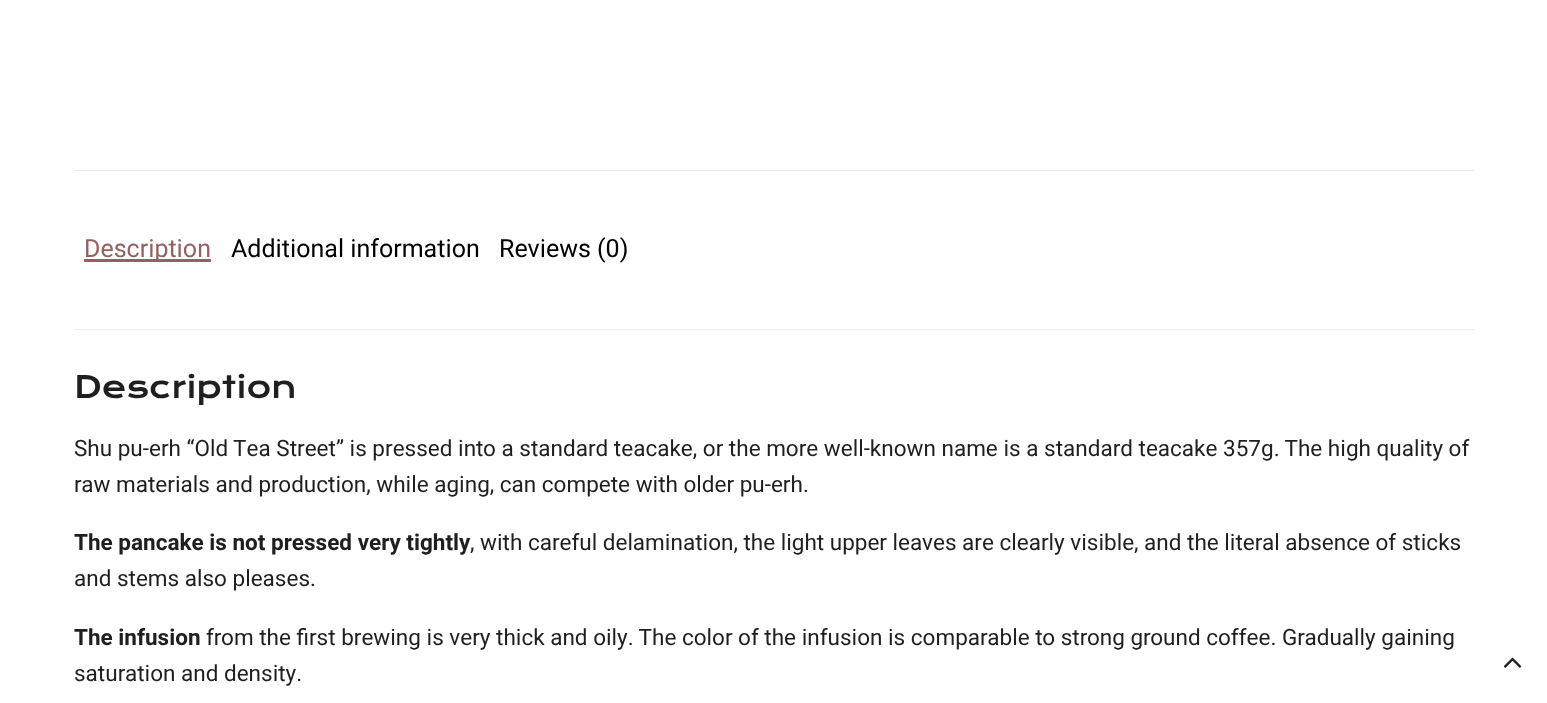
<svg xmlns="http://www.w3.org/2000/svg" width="1547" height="703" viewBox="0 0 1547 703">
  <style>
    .t1 { font: 25px Heebo; fill: #936161; }
    .t2 { font: 25px Heebo; fill: #000; }
    .t3 { font: 30px Krona One; fill: #1f1f1f; }
    .t4 { font: 22.5px Heebo; fill: #1f1f1f; }
    .t5 { font: bold 22.5px Heebo; fill: #1f1f1f; }
  </style>
  <rect width="100%" height="100%" fill="#fff"/>
  <rect x="74" y="170" width="1400" height="1" fill="#ebeced"/>
  <rect x="74" y="329" width="1400" height="1" fill="#ebeced"/>
  <rect x="84" y="259" width="127" height="3" fill="#936161"/>
  <text x="84" y="257" class="t1">Description</text>
  <text x="231" y="257" class="t2">Additional information</text>
  <text x="499" y="257" class="t2">Reviews (0)</text>
  <text x="74" y="398" class="t3">Description</text>
  <text x="74" y="456" class="t4">Shu pu-erh “Old Tea Street” is pressed into a standard teacake, or the more well-known name is a standard teacake 357g. The high quality of</text>
  <text x="74" y="492" class="t4">raw materials and production, while aging, can compete with older pu-erh.</text>
  <text x="74" y="550" class="t5">The pancake is not pressed very tightly</text>
  <text x="470" y="550" class="t4">, with careful delamination, the light upper leaves are clearly visible, and the literal absence of sticks</text>
  <text x="74" y="586" class="t4">and stems also pleases.</text>
  <text x="74" y="645" class="t5">The infusion</text>
  <text x="206" y="645" class="t4">from the first brewing is very thick and oily. The color of the infusion is comparable to strong ground coffee. Gradually gaining</text>
  <text x="74" y="681" class="t4">saturation and density.</text>
  <image x="1503" y="657" width="19" height="11" href="images/1.png"/>
</svg>
